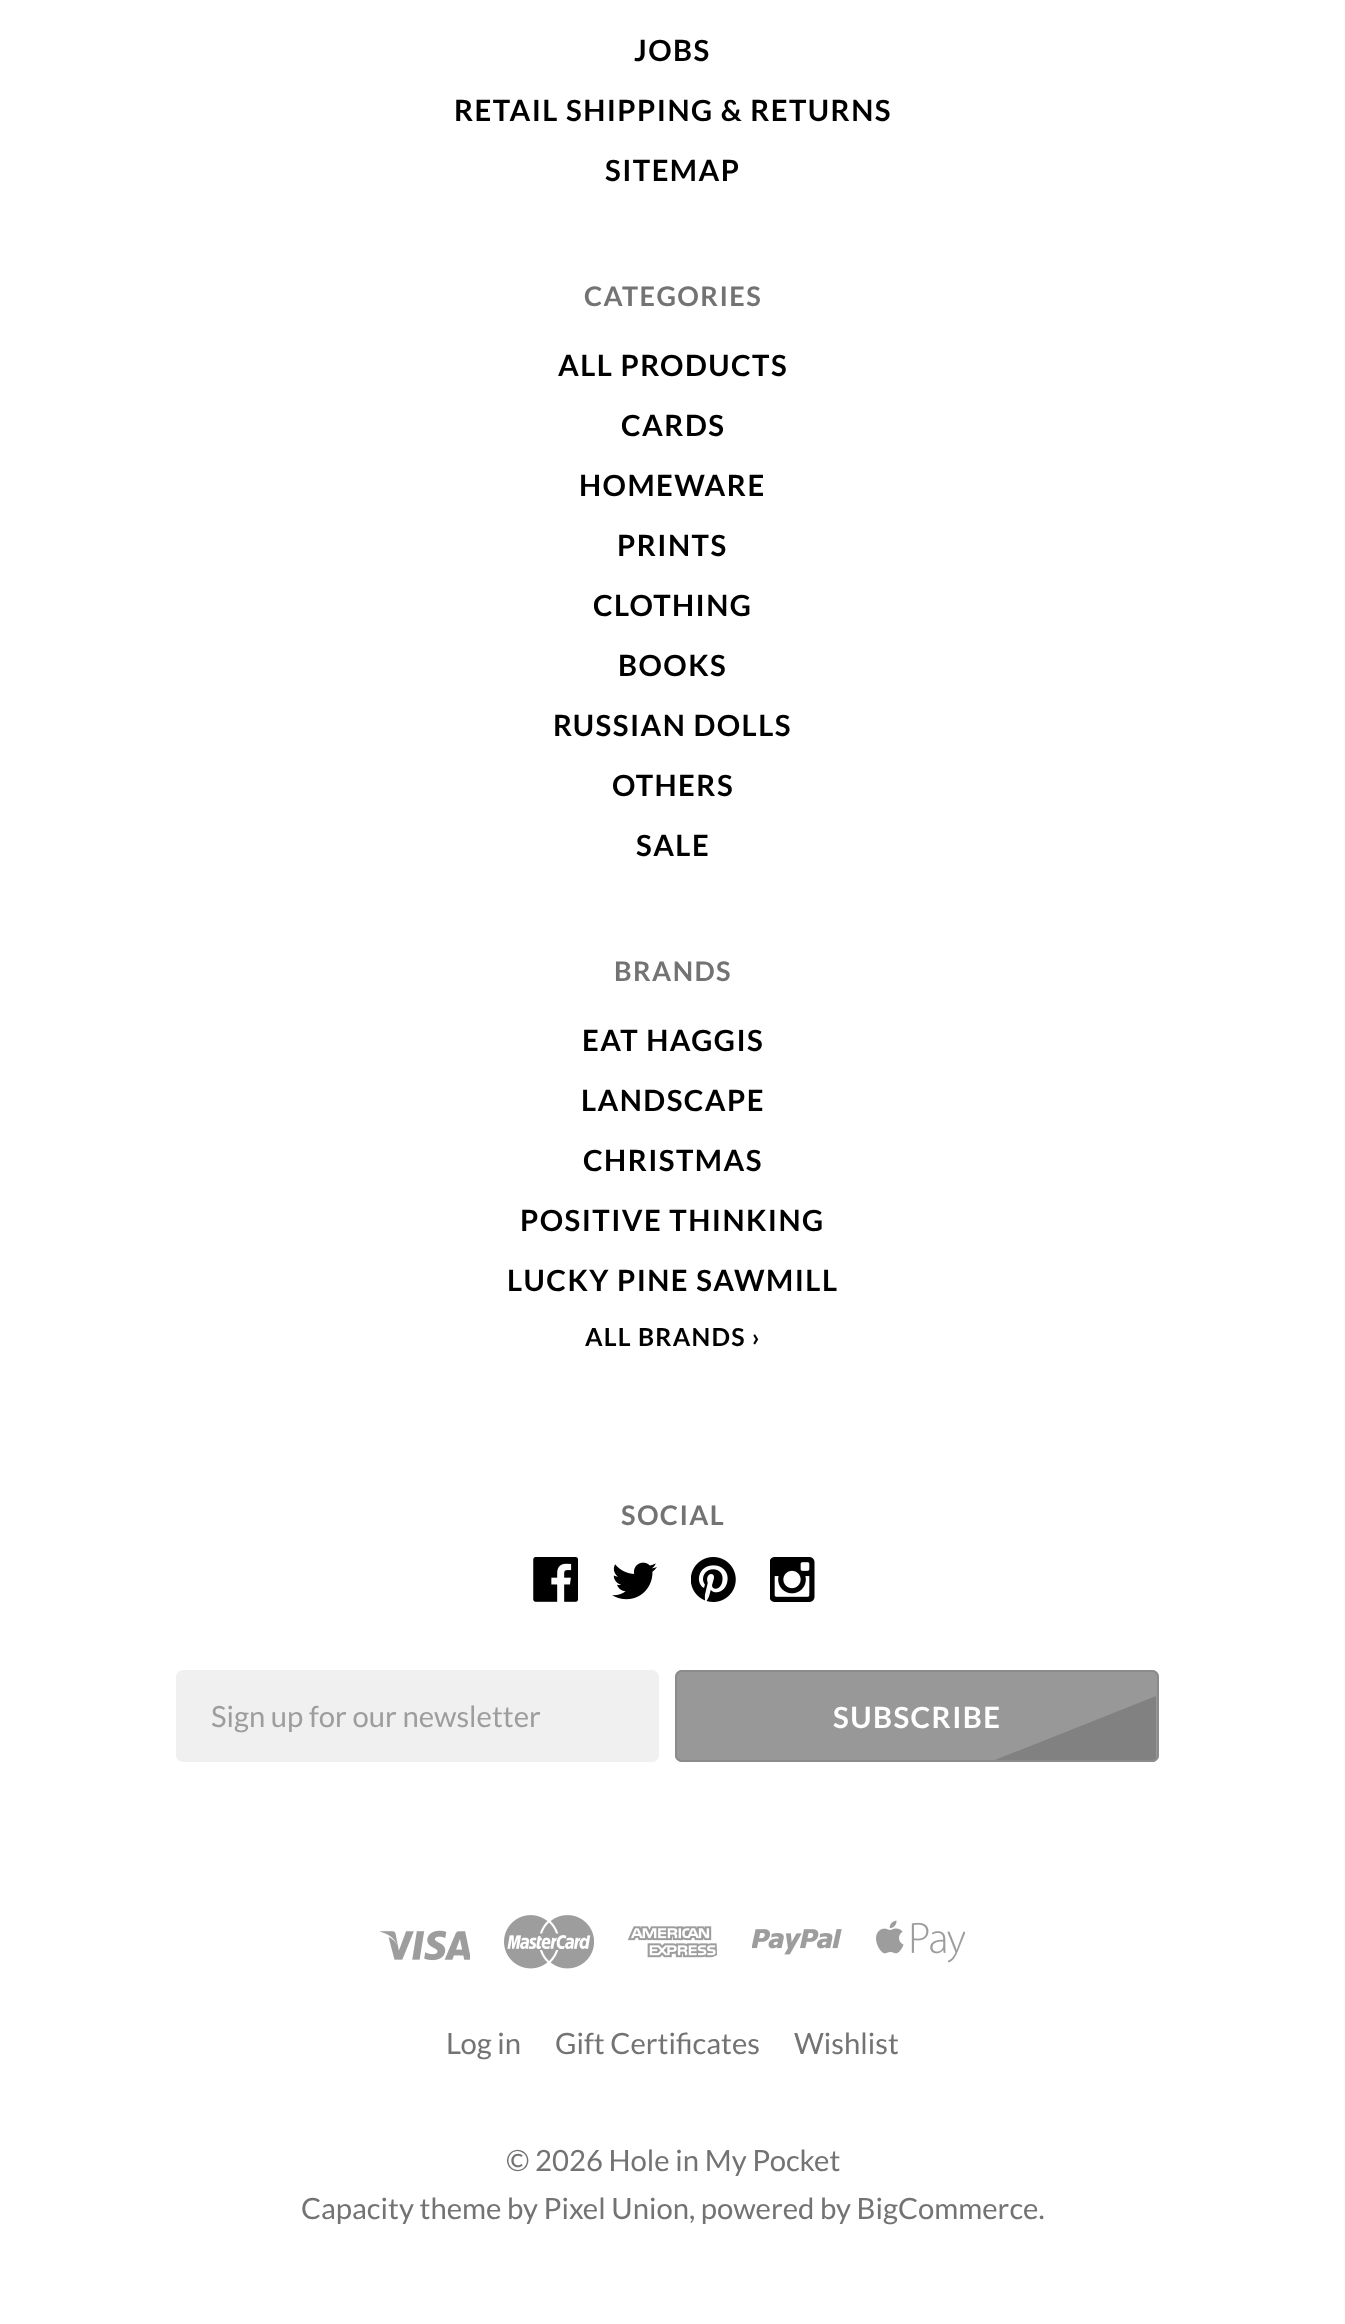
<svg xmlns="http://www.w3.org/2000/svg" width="1345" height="2324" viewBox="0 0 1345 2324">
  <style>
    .t1 { font: bold 29.25px Lato; letter-spacing: 1.45px; fill: #000; }
    .t2 { font: bold 27px Lato; letter-spacing: 1.4px; fill: #737373; }
    .t3 { font: bold 24.75px Lato; letter-spacing: 1.25px; fill: #000; }
    .t4 { font: 29.25px Lato; fill: #9d9d9d; }
    .t5 { font: bold 29.25px Lato; letter-spacing: 1.45px; fill: #fff; }
    .t6 { font: 29.25px Lato; fill: #737373; }
  </style>
  <rect width="100%" height="100%" fill="#fff"/>
  <text x="634" y="61" class="t1">JOBS</text>
  <text x="454" y="121" class="t1">RETAIL SHIPPING &amp; RETURNS</text>
  <text x="605" y="181" class="t1">SITEMAP</text>
  <text x="584" y="306" class="t2">CATEGORIES</text>
  <text x="558" y="376" class="t1">ALL PRODUCTS</text>
  <text x="621" y="436" class="t1">CARDS</text>
  <text x="579" y="496" class="t1">HOMEWARE</text>
  <text x="617" y="556" class="t1">PRINTS</text>
  <text x="593" y="616" class="t1">CLOTHING</text>
  <text x="618" y="676" class="t1">BOOKS</text>
  <text x="553" y="736" class="t1">RUSSIAN DOLLS</text>
  <text x="612" y="796" class="t1">OTHERS</text>
  <text x="636" y="856" class="t1">SALE</text>
  <text x="614" y="981" class="t2">BRANDS</text>
  <text x="582" y="1051" class="t1">EAT HAGGIS</text>
  <text x="581" y="1111" class="t1">LANDSCAPE</text>
  <text x="583" y="1171" class="t1">CHRISTMAS</text>
  <text x="520" y="1231" class="t1">POSITIVE THINKING</text>
  <text x="507" y="1291" class="t1">LUCKY PINE SAWMILL</text>
  <text x="585" y="1346" class="t3">ALL BRANDS ›</text>
  <text x="621" y="1525" class="t2">SOCIAL</text>
  <image x="533" y="1557" width="45" height="45" href="images/1.png"/>
  <image x="612" y="1562" width="45" height="38" href="images/2.png"/>
  <image x="691" y="1557" width="45" height="45" href="images/3.png"/>
  <image x="770" y="1557" width="45" height="45" href="images/4.png"/>
  <rect x="177" y="1671" width="481" height="90" rx="6" fill="#f0f0f0" stroke="#f0f0f0" stroke-width="2"/>
  <text x="211" y="1727" class="t4">Sign up for our newsletter</text>
  <rect x="675" y="1670" width="484" height="92" rx="7" fill="#989898"/>
  <path d="M1156 1761C1155 1762 1153 1762 1152 1762H990L1156 1696Z" fill="#00000026"/>
  <rect x="676" y="1671" width="482" height="90" rx="6" fill="none" stroke="#8b8b8b" stroke-width="2"/>
  <text x="833" y="1728" class="t5">SUBSCRIBE</text>
  <image x="380" y="1930" width="90" height="31" href="images/5.png"/>
  <image x="504" y="1915" width="90" height="54" href="images/6.png"/>
  <image x="628" y="1926" width="90" height="32" href="images/7.png"/>
  <image x="752" y="1929" width="90" height="26" href="images/8.png"/>
  <image x="876" y="1920" width="89" height="43" href="images/9.png"/>
  <text x="446" y="2054" class="t6">Log in</text>
  <text x="555" y="2054" class="t6">Gift Certificates</text>
  <text x="794" y="2054" class="t6">Wishlist</text>
  <text x="506" y="2171" class="t6">© 2026 Hole in My Pocket</text>
  <text x="301" y="2219" class="t6">Capacity theme by Pixel Union, powered by BigCommerce.</text>
</svg>
